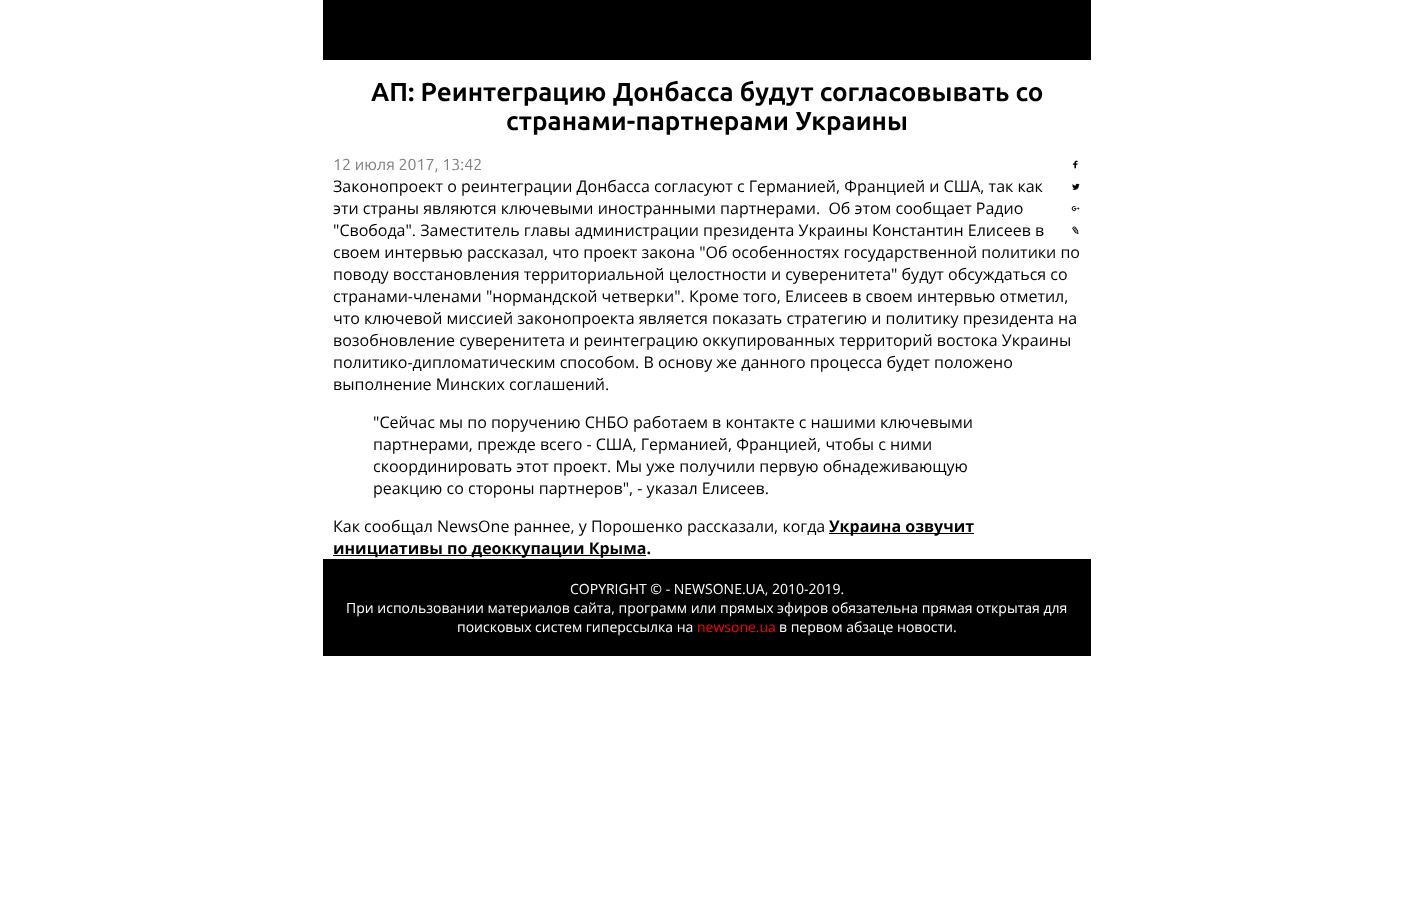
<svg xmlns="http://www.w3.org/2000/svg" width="1414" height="910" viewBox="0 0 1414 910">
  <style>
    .t1 { font: bold 26px Ubuntu; fill: #000; }
    .t2 { font: 16px Ubuntu; fill: #808080; }
    .t3 { font: 16px Open Sans; fill: #000; }
    .t4 { font: bold 16px Open Sans; fill: #000; }
    .t5 { font: 14px Open Sans; fill: #fff; }
    .t6 { font: 14px Open Sans; fill: #f00; }
  </style>
  <rect width="100%" height="100%" fill="#fff"/>
  <rect x="323" y="0" width="768" height="60" fill="#000"/>
  <text x="371" y="101" class="t1">АП: Реинтеграцию Донбасса будут согласовывать со</text>
  <text x="506" y="130" class="t1">странами-партнерами Украины</text>
  <text x="333" y="170" class="t2">12 июля 2017, 13:42</text>
  <image x="1073" y="160" width="5" height="9" href="images/1.png"/>
  <image x="1072" y="183" width="8" height="7" href="images/2.png"/>
  <image x="1071" y="206" width="9" height="5" href="images/3.png"/>
  <image x="1072" y="226" width="7" height="9" href="images/4.png"/>
  <text x="333" y="192" class="t3">Законопроект о реинтеграции Донбасса согласуют с Германией, Францией и США, так как</text>
  <text x="333" y="214" class="t3" xml:space="preserve">эти страны являются ключевыми иностранными партнерами.  Об этом сообщает Радио</text>
  <text x="333" y="236" class="t3">"Свобода". Заместитель главы администрации президента Украины Константин Елисеев в</text>
  <text x="333" y="258" class="t3">своем интервью рассказал, что проект закона "Об особенностях государственной политики по</text>
  <text x="333" y="280" class="t3">поводу восстановления территориальной целостности и суверенитета" будут обсуждаться со</text>
  <text x="333" y="302" class="t3">странами-членами "нормандской четверки". Кроме того, Елисеев в своем интервью отметил,</text>
  <text x="333" y="324" class="t3">что ключевой миссией законопроекта является показать стратегию и политику президента на</text>
  <text x="333" y="346" class="t3">возобновление суверенитета и реинтеграцию оккупированных территорий востока Украины</text>
  <text x="333" y="368" class="t3">политико-дипломатическим способом. В основу же данного процесса будет положено</text>
  <text x="333" y="390" class="t3">выполнение Минских соглашений.</text>
  <text x="373" y="428" class="t3">"Сейчас мы по поручению СНБО работаем в контакте с нашими ключевыми</text>
  <text x="373" y="450" class="t3">партнерами, прежде всего - США, Германией, Францией, чтобы с ними</text>
  <text x="373" y="472" class="t3">скоординировать этот проект. Мы уже получили первую обнадеживающую</text>
  <text x="373" y="494" class="t3">реакцию со стороны партнеров", - указал Елисеев.</text>
  <text x="333" y="532" class="t3">Как сообщал NewsOne раннее, у Порошенко рассказали, когда</text>
  <rect x="829" y="533" width="145" height="1" fill="#000"/>
  <text x="829" y="532" class="t4">Украина озвучит</text>
  <rect x="333" y="555" width="313" height="1" fill="#000"/>
  <text x="333" y="554" class="t4">инициативы по деоккупации Крыма.</text>
  <rect x="323" y="559" width="768" height="97" fill="#000"/>
  <text x="570" y="594" class="t5">COPYRIGHT © - NEWSONE.UA, 2010-2019.</text>
  <text x="346" y="613" class="t5">При использовании материалов сайта, программ или прямых эфиров обязательна прямая открытая для</text>
  <text x="457" y="632" class="t5">поисковых систем гиперссылка на</text>
  <text x="697" y="632" class="t6">newsone.ua</text>
  <text x="779" y="632" class="t5">в первом абзаце новости.</text>
</svg>
